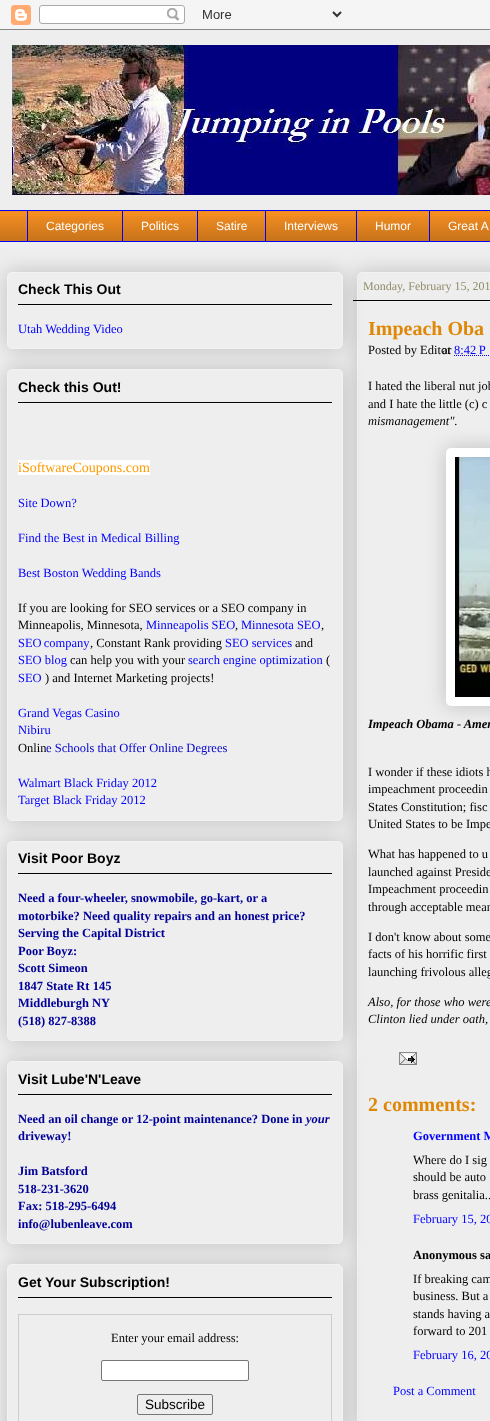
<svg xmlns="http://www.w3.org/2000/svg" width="490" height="1421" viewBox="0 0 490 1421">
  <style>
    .t1 { font: 12px Liberation Sans; fill: #fff; }
    .t2 { font: bold 14px Liberation Sans; fill: #000; }
    .t3 { font: 12.5px Liberation Serif; fill: #00f; }
    .t4 { font: 14px Liberation Serif; fill: #f90; }
    .t5 { font: 12.5px Liberation Serif; fill: #000; }
    .t6 { font: 12.5px Liberation Serif; fill: #00c; }
    .t7 { font: bold 12.5px Liberation Serif; fill: #009; }
    .t8 { font: italic bold 12.5px Liberation Serif; fill: #009; }
    .t9 { font: 13.5px Liberation Sans; fill: #000; }
    .t10 { font: 12px Liberation Serif; fill: #908c6a; }
    .t11 { font: bold 20px Liberation Serif; fill: #df8807; }
    .t12 { font: italic 12.5px Liberation Serif; fill: #000; }
    .t13 { font: italic bold 12.5px Liberation Serif; fill: #000; }
    .t14 { font: bold 12.5px Liberation Serif; fill: #00f; }
    .t15 { font: bold 12.5px Liberation Serif; fill: #000; }
  </style>
  <rect width="100%" height="100%" fill="#eee"/>
  <image x="0" y="0" width="490" height="30" href="images/1.png"/>
  <image x="12" y="45" width="478" height="150" href="images/2.png"/>
  <rect x="0" y="211" width="490" height="30" fill="#f48e22"/>
  <image x="0" y="216" width="490" height="25" href="images/3.png"/>
  <rect x="0" y="210" width="490" height="1" fill="#00f"/>
  <rect x="27" y="210" width="1" height="32" fill="#00f"/>
  <text x="46" y="230" class="t1">Categories</text>
  <rect x="122" y="210" width="1" height="32" fill="#00f"/>
  <text x="141" y="230" class="t1">Politics</text>
  <rect x="197" y="210" width="1" height="32" fill="#00f"/>
  <text x="216" y="230" class="t1">Satire</text>
  <rect x="265" y="210" width="1" height="32" fill="#00f"/>
  <text x="284" y="230" class="t1">Interviews</text>
  <rect x="356" y="210" width="1" height="32" fill="#00f"/>
  <text x="375" y="230" class="t1">Humor</text>
  <rect x="429" y="210" width="1" height="32" fill="#00f"/>
  <text x="448" y="230" class="t1">Great A</text>
  <rect x="0" y="241" width="490" height="1" fill="#00f"/>
  <rect x="357" y="272" width="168" height="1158" rx="5" fill="#00000033" filter="blur(10px)"/>
  <rect x="357.5" y="272.5" width="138" height="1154" rx="4.5" fill="#eee" stroke="#f3f3f3"/>
  <rect x="353" y="300" width="137" height="1" fill="#000"/>
  <rect x="368" y="301" width="122" height="1" fill="#f3f3f3"/>
  <rect x="7" y="272" width="336" height="77" rx="5" fill="#00000033" filter="blur(10px)"/>
  <rect x="7.5" y="272.5" width="335" height="76" rx="4.5" fill="#eee" stroke="#f3f3f3"/>
  <rect x="18" y="304" width="314" height="1" fill="#000"/>
  <text x="18" y="294" class="t2">Check This Out</text>
  <rect x="18" y="305" width="314" height="1" fill="#f3f3f3"/>
  <text x="18" y="333" class="t3">Utah Wedding Video</text>
  <rect x="7" y="369" width="336" height="452" rx="5" fill="#00000033" filter="blur(10px)"/>
  <rect x="7.5" y="369.5" width="335" height="451" rx="4.5" fill="#eee" stroke="#f3f3f3"/>
  <rect x="18" y="402" width="314" height="1" fill="#000"/>
  <text x="18" y="392" class="t2">Check this Out!</text>
  <rect x="18" y="403" width="314" height="1" fill="#f3f3f3"/>
  <rect x="18" y="460" width="132" height="15" fill="#fff"/>
  <text x="18" y="472" class="t4">iSoftwareCoupons.com</text>
  <text x="18" y="507" class="t3">Site Down?</text>
  <text x="18" y="542" class="t3">Find the Best in Medical Billing</text>
  <text x="18" y="577" class="t3">Best Boston Wedding Bands</text>
  <text x="18" y="612" class="t5">If you are looking for SEO services or a SEO company in</text>
  <text x="18" y="629" class="t5">Minneapolis, Minnesota,</text>
  <text x="146" y="629" class="t3">Minneapolis SEO</text>
  <text x="235" y="629" class="t5">,</text>
  <text x="241" y="629" class="t3">Minnesota SEO</text>
  <text x="321" y="629" class="t5">,</text>
  <text x="18" y="647" word-spacing="-1" class="t3">SEO company</text>
  <text x="90" y="647" class="t5">, Constant Rank providing</text>
  <text x="225" y="647" class="t3">SEO services</text>
  <text x="295" y="647" class="t5">and</text>
  <text x="18" y="664" class="t3">SEO blog</text>
  <text x="70" y="664" class="t5">can help you with your</text>
  <text x="188" y="664" class="t3">search engine optimization</text>
  <text x="326" y="664" class="t5">(</text>
  <text x="18" y="682" class="t3">SEO</text>
  <text x="45" y="682" class="t5">) and Internet Marketing projects!</text>
  <text x="18" y="717" class="t3">Grand Vegas Casino</text>
  <text x="18" y="734" class="t3">Nibiru</text>
  <text x="18" y="752" class="t5">Onlin</text>
  <text x="46" y="752" class="t6">e Schools that Offer Online Degrees</text>
  <text x="18" y="787" class="t3">Walmart Black Friday 2012</text>
  <text x="18" y="804" class="t3">Target Black Friday 2012</text>
  <rect x="7" y="841" width="336" height="200" rx="5" fill="#00000033" filter="blur(10px)"/>
  <rect x="7.5" y="841.5" width="335" height="199" rx="4.5" fill="#eee" stroke="#f3f3f3"/>
  <rect x="18" y="873" width="314" height="1" fill="#000"/>
  <text x="18" y="863" class="t2">Visit Poor Boyz</text>
  <rect x="18" y="874" width="314" height="1" fill="#f3f3f3"/>
  <text x="18" y="902" class="t7">Need a four-wheeler, snowmobile, go-kart, or a</text>
  <text x="18" y="920" class="t7">motorbike? Need quality repairs and an honest price?</text>
  <text x="18" y="937" class="t7">Serving the Capital District</text>
  <text x="18" y="955" class="t7">Poor Boyz:</text>
  <text x="18" y="972" class="t7">Scott Simeon</text>
  <text x="18" y="990" class="t7">1847 State Rt 145</text>
  <text x="18" y="1007" class="t7">Middleburgh NY</text>
  <text x="18" y="1025" class="t7">(518) 827-8388</text>
  <rect x="7" y="1061" width="336" height="183" rx="5" fill="#00000033" filter="blur(10px)"/>
  <rect x="7.5" y="1061.5" width="335" height="182" rx="4.5" fill="#eee" stroke="#f3f3f3"/>
  <rect x="18" y="1094" width="314" height="1" fill="#000"/>
  <text x="18" y="1084" class="t2">Visit Lube'N'Leave</text>
  <rect x="18" y="1095" width="314" height="1" fill="#f3f3f3"/>
  <text x="18" y="1123" class="t7">Need an oil change or 12-point maintenance? Done in</text>
  <text x="306" y="1123" class="t8">your</text>
  <text x="18" y="1140" class="t7">driveway!</text>
  <text x="18" y="1175" class="t7">Jim Batsford</text>
  <text x="18" y="1193" class="t7">518-231-3620</text>
  <text x="18" y="1210" class="t7">Fax: 518-295-6494</text>
  <text x="18" y="1228" class="t7">info@lubenleave.com</text>
  <rect x="7" y="1264" width="336" height="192" rx="5" fill="#00000033" filter="blur(10px)"/>
  <rect x="7.5" y="1264.5" width="335" height="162" rx="4.5" fill="#eee" stroke="#f3f3f3"/>
  <rect x="18" y="1297" width="314" height="1" fill="#000"/>
  <text x="18" y="1287" class="t2">Get Your Subscription!</text>
  <rect x="18" y="1298" width="314" height="1" fill="#f3f3f3"/>
  <rect x="18.5" y="1314.5" width="313" height="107" fill="none" stroke="#ccc"/>
  <text x="111" y="1342" class="t5">Enter your email address:</text>
  <rect x="101.5" y="1360.5" width="147" height="20" rx="1.5" fill="#fff" stroke="#767676"/>
  <rect x="137.5" y="1394.5" width="75" height="20" rx="1.5" fill="none" stroke="#767676"/>
  <text x="145" y="1409" class="t9">Subscribe</text>
  <text x="363" y="290" class="t10">Monday, February 15, 201</text>
  <text x="368" y="335" class="t11">Impeach Oba</text>
  <text x="368" y="354" class="t5">Posted by Editor</text>
  <text x="454" y="354" class="t3">8:42 P</text>
  <path d="M454 355.5H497" fill="none" stroke="#00f" stroke-dasharray="1 1"/>
  <text x="442" y="354" class="t5">at</text>
  <text x="368" y="390" class="t5">I hated the liberal nut job</text>
  <text x="368" y="408" class="t5">and I hate the little (c) c</text>
  <rect x="446" y="448" width="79" height="258" rx="5" fill="#00000033" filter="blur(10px)"/>
  <text x="368" y="425" class="t12">mismanagement".</text>
  <rect x="446" y="448" width="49" height="258" rx="5" fill="#fff"/>
  <image x="455" y="457" width="35" height="240" href="images/4.png"/>
  <text x="368" y="728" class="t13">Impeach Obama - Amer</text>
  <text x="368" y="776" class="t5">I wonder if these idiots h</text>
  <text x="368" y="793" class="t5">impeachment proceedin</text>
  <text x="368" y="811" class="t5">States Constitution; fisc</text>
  <text x="368" y="828" class="t5">United States to be Impe</text>
  <text x="368" y="858" class="t5">What has happened to u</text>
  <text x="368" y="876" class="t5">launched against Preside</text>
  <text x="368" y="893" class="t5">Impeachment proceedin</text>
  <text x="368" y="911" class="t5">through acceptable mean</text>
  <text x="368" y="941" class="t5">I don't know about some</text>
  <text x="368" y="958" class="t5">facts of his horrific first</text>
  <text x="368" y="976" class="t5">launching frivolous alleg</text>
  <text x="368" y="1006" class="t12">Also, for those who were</text>
  <text x="368" y="1023" class="t12">Clinton lied under oath,</text>
  <image x="399" y="1052" width="18" height="13" href="images/5.png"/>
  <text x="368" y="1111" class="t11">2 comments:</text>
  <text x="413" y="1140" class="t14">Government M</text>
  <text x="413" y="1164" class="t5">Where do I sig</text>
  <text x="413" y="1181" class="t5">should be auto</text>
  <text x="413" y="1199" class="t5">brass genitalia..</text>
  <text x="413" y="1223" class="t3">February 15, 20</text>
  <text x="413" y="1259" class="t15">Anonymous sa</text>
  <text x="413" y="1283" class="t5">If breaking cam</text>
  <text x="413" y="1300" class="t5">business. But a</text>
  <text x="413" y="1318" class="t5">stands having a</text>
  <text x="413" y="1335" class="t5">forward to 201</text>
  <text x="413" y="1359" class="t3">February 16, 20</text>
  <text x="393" y="1395" class="t3">Post a Comment</text>
</svg>
